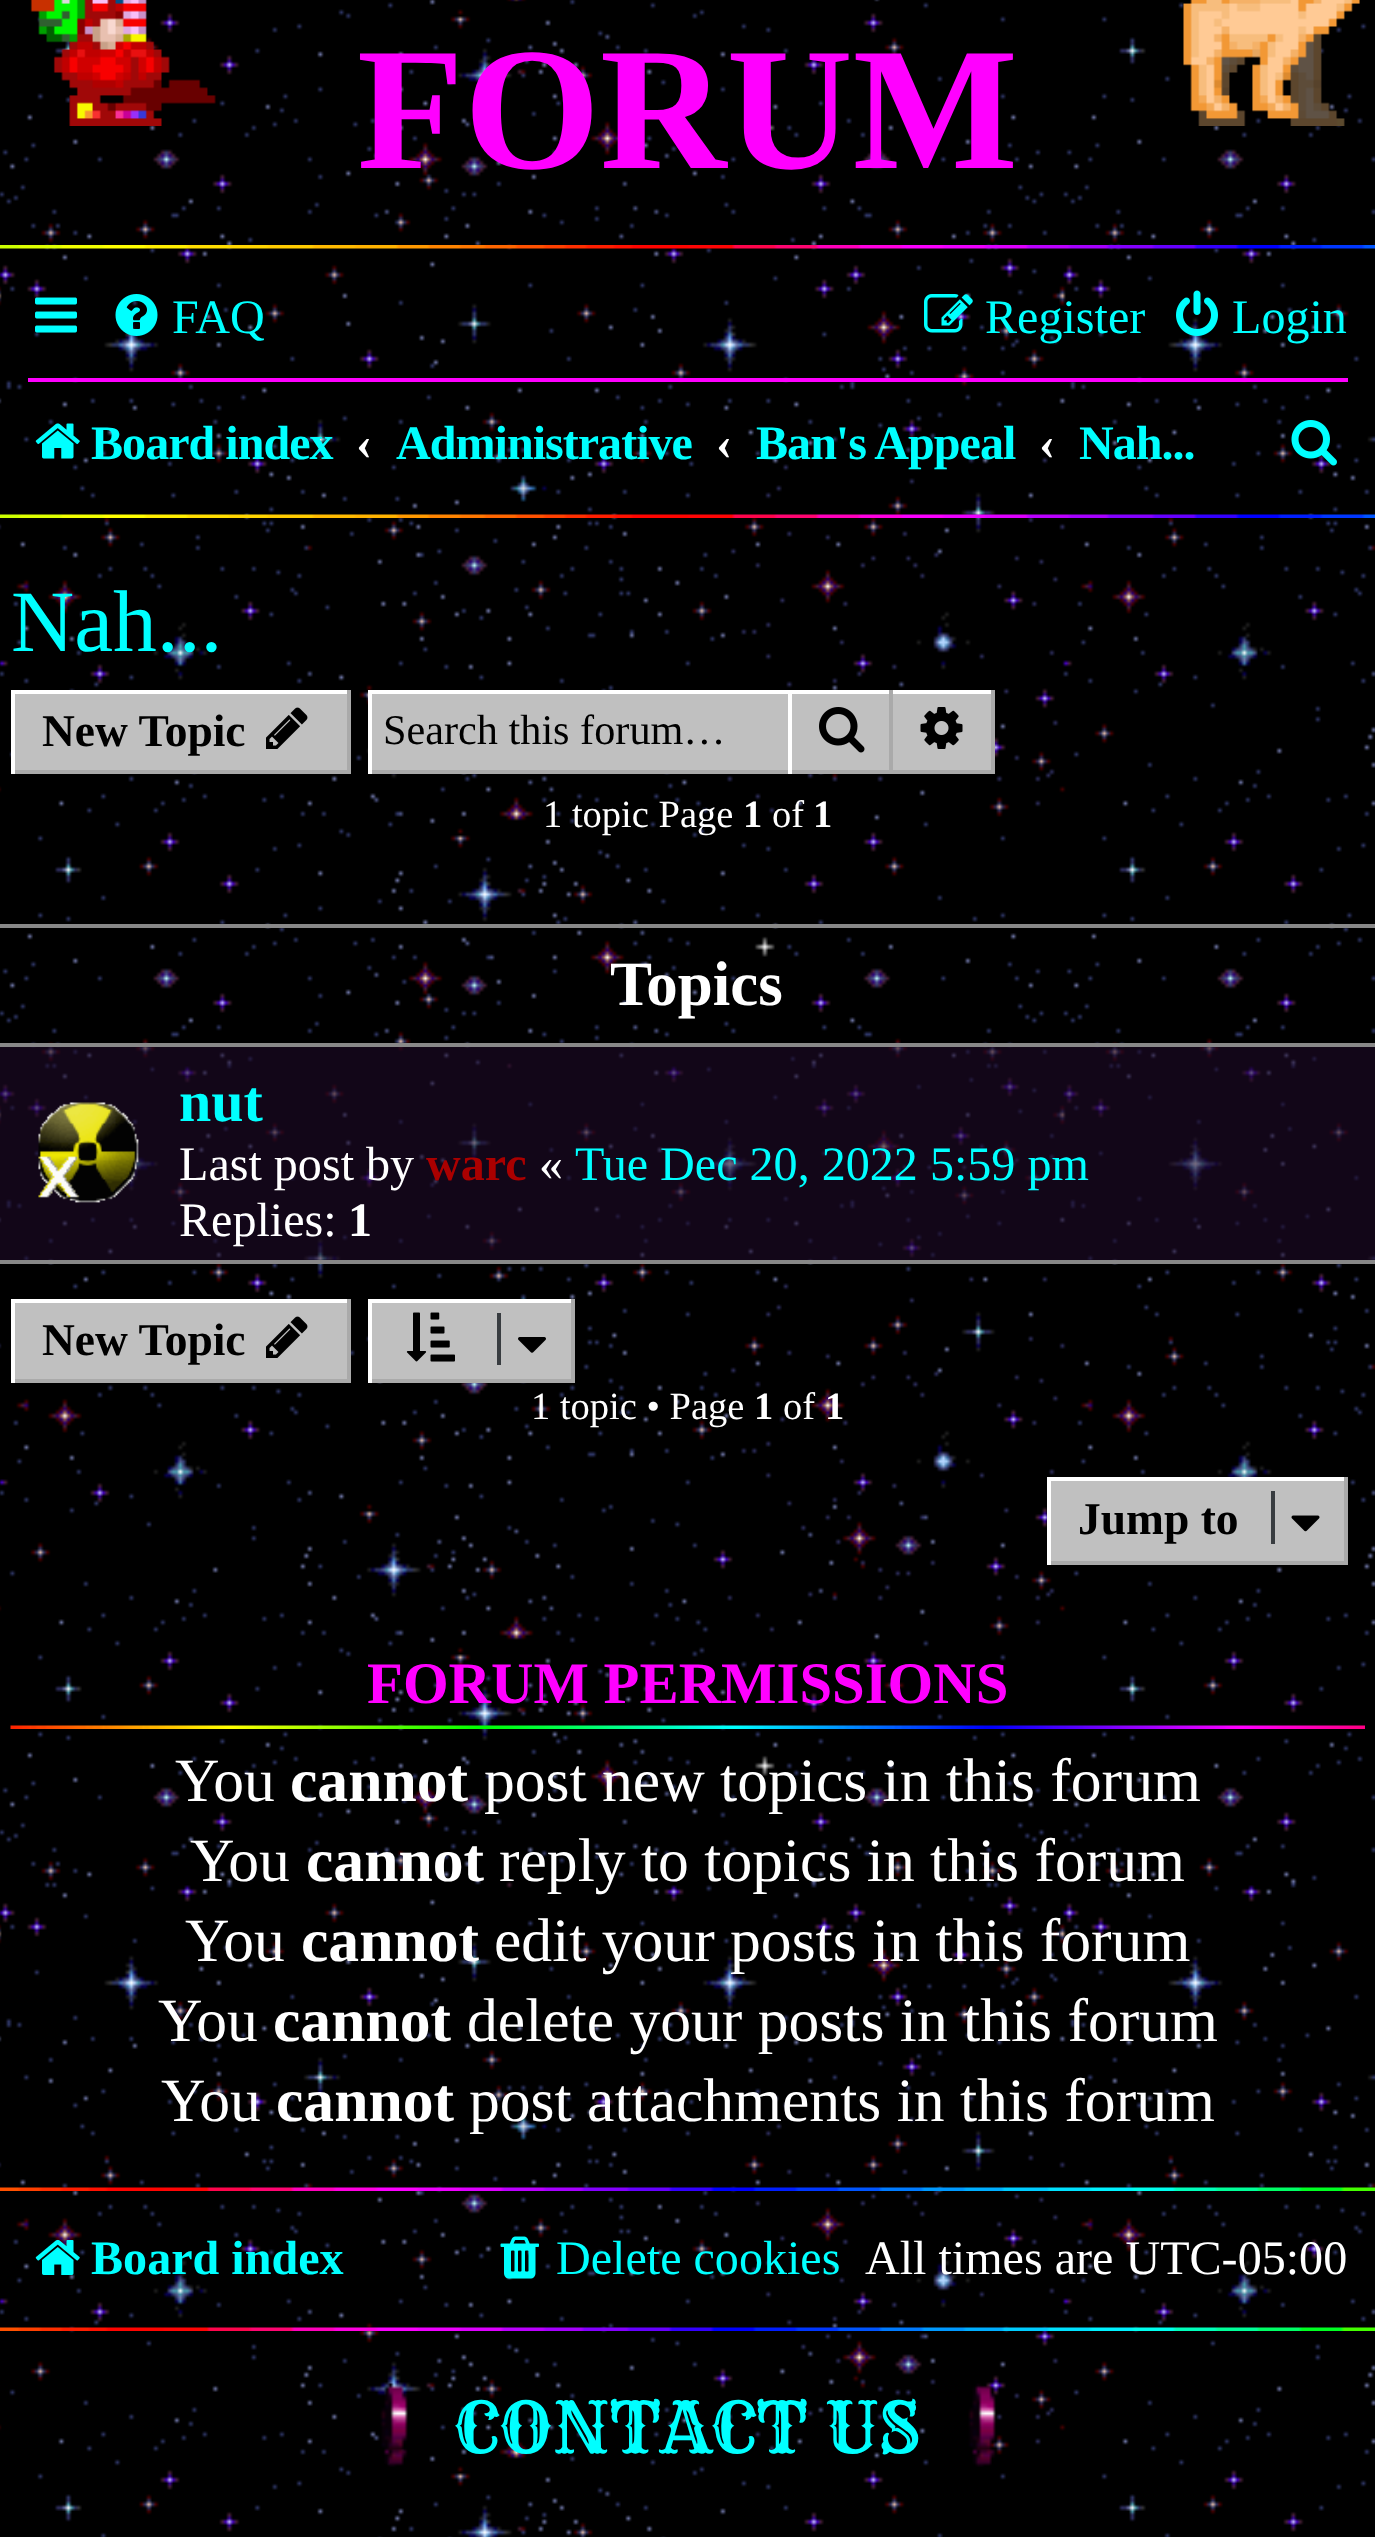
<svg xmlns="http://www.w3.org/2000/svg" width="1375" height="2537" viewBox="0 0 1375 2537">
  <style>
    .t1 { font: bold 175px Liberation Serif; fill: #f0f; }
    .t2 { font: 48.1px Liberation Serif; fill: #0ff; }
    .t3 { font: bold 48.1px Liberation Serif; letter-spacing: -1px; fill: #0ff; }
    .t4 { font: bold 48.1px Liberation Serif; fill: #fff; }
    .t5 { font: 87.5px Liberation Serif; fill: #0ff; }
    .t6 { font: bold 45.5px Liberation Serif; fill: #000; }
    .t7 { font: 42.25px Liberation Serif; fill: #000; }
    .t8 { font: 38.5px Liberation Serif; fill: #fff; }
    .t9 { font: bold 38.5px Liberation Serif; fill: #fff; }
    .t10 { font: bold 63px Liberation Serif; fill: #fff; }
    .t11 { font: bold 58px Liberation Serif; fill: #0ff; }
    .t12 { font: 48.1px Liberation Serif; fill: #fff; }
    .t13 { font: bold 48.1px Liberation Serif; fill: #a00; }
    .t14 { font: bold 58.75px Liberation Serif; fill: #f0f; }
    .t15 { font: 61.6px Liberation Serif; fill: #fff; }
    .t16 { font: bold 61.6px Liberation Serif; fill: #fff; }
    .t17 { font: bold 48.1px Liberation Serif; fill: #0ff; }
    .t18 { font: 70px Rye; fill: #0ff; }
  </style>
  <rect width="100%" height="100%" fill="#fff"/>
  <image x="0" y="0" width="1375" height="2537" href="images/1.png"/>
  <image x="30" y="0" width="1330" height="126" href="images/2.png"/>
  <text x="357" y="168" class="t1">FORUM</text>
  <image x="0" y="245" width="1375" height="273" href="images/3.png"/>
  <image x="35" y="297" width="42" height="36" href="images/4.png"/>
  <image x="115" y="294" width="43" height="42" href="images/5.png"/>
  <text x="172" y="333" class="t2">FAQ</text>
  <image x="924" y="294" width="49" height="39" href="images/6.png"/>
  <text x="985" y="333" class="t2">Register</text>
  <image x="1176" y="290" width="42" height="46" href="images/7.png"/>
  <text x="1232" y="333" class="t2">Login</text>
  <rect x="28" y="378" width="1320" height="4" fill="#f0f"/>
  <image x="35" y="423" width="45" height="36" href="images/8.png"/>
  <text x="91" y="459" class="t3">Board index</text>
  <text x="356" y="459" class="t4">‹</text>
  <text x="396" y="459" class="t3">Administrative</text>
  <text x="716" y="459" class="t4">‹</text>
  <text x="756" y="459" class="t3">Ban's Appeal</text>
  <text x="1039" y="459" class="t4">‹</text>
  <text x="1079" y="459" class="t3">Nah...</text>
  <image x="1291" y="420" width="46" height="46" href="images/9.png"/>
  <text x="11" y="651" class="t5">Nah...</text>
  <rect x="15" y="694" width="332" height="76" fill="#c0c0c0"/>
  <rect x="11" y="690" width="339" height="4" fill="#fff"/>
  <rect x="347" y="690" width="4" height="84" fill="#aaa"/>
  <rect x="11" y="770" width="339" height="4" fill="#aaa"/>
  <rect x="11" y="690" width="4" height="84" fill="#fff"/>
  <text x="42" y="746" class="t6">New Topic</text>
  <image x="266" y="707" width="42" height="42" href="images/10.png"/>
  <rect x="372" y="694" width="416" height="76" fill="#c0c0c0"/>
  <rect x="368" y="690" width="626" height="4" fill="#fff"/>
  <rect x="368" y="770" width="420" height="4" fill="#aaa"/>
  <rect x="368" y="690" width="4" height="84" fill="#fff"/>
  <text x="383" y="744" class="t7">Search this forum…</text>
  <rect x="792" y="694" width="97" height="76" fill="#c0c0c0"/>
  <rect x="889" y="690" width="4" height="84" fill="#aaa"/>
  <rect x="788" y="770" width="105" height="4" fill="#aaa"/>
  <rect x="788" y="690" width="4" height="84" fill="#fff"/>
  <image x="819" y="707" width="46" height="46" href="images/11.png"/>
  <rect x="893" y="694" width="98" height="76" fill="#c0c0c0"/>
  <rect x="991" y="690" width="4" height="84" fill="#aaa"/>
  <rect x="893" y="770" width="101" height="4" fill="#aaa"/>
  <image x="920" y="707" width="43" height="42" href="images/12.png"/>
  <text x="543" y="827" class="t8">1 topic Page</text>
  <text x="743" y="827" class="t9">1</text>
  <text x="772" y="827" class="t8">of</text>
  <text x="813" y="827" class="t9">1</text>
  <rect x="-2" y="926" width="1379" height="336" fill="none" stroke="#888" stroke-width="4"/>
  <text x="610" y="1005" class="t10">Topics</text>
  <rect x="0" y="1047" width="1375" height="213" fill="#1e0a2899"/>
  <rect x="0" y="1043" width="1375" height="4" fill="#888"/>
  <image x="38" y="1102" width="101" height="101" href="images/13.png"/>
  <text x="179" y="1121" class="t11">nut</text>
  <text x="179" y="1180" class="t12">Last post by</text>
  <text x="426" y="1180" class="t13">warc</text>
  <text x="539" y="1180" class="t12">«</text>
  <text x="575" y="1180" class="t2">Tue Dec 20, 2022 5:59 pm</text>
  <text x="179" y="1236" class="t12">Replies:</text>
  <text x="348" y="1236" class="t4">1</text>
  <rect x="15" y="1303" width="332" height="76" fill="#c0c0c0"/>
  <rect x="11" y="1299" width="339" height="4" fill="#fff"/>
  <rect x="347" y="1299" width="4" height="84" fill="#aaa"/>
  <rect x="11" y="1379" width="339" height="4" fill="#aaa"/>
  <rect x="11" y="1299" width="4" height="84" fill="#fff"/>
  <text x="42" y="1355" class="t6">New Topic</text>
  <image x="266" y="1316" width="42" height="42" href="images/10.png"/>
  <rect x="372" y="1303" width="199" height="76" fill="#c0c0c0"/>
  <rect x="368" y="1299" width="206" height="4" fill="#fff"/>
  <rect x="571" y="1299" width="4" height="84" fill="#aaa"/>
  <rect x="368" y="1379" width="206" height="4" fill="#aaa"/>
  <rect x="368" y="1299" width="4" height="84" fill="#fff"/>
  <image x="406" y="1312" width="49" height="50" href="images/14.png"/>
  <rect x="497" y="1313" width="4" height="52" fill="#383c40"/>
  <image x="518" y="1337" width="28" height="16" href="images/15.png"/>
  <text x="531" y="1419" class="t8">1 topic • Page</text>
  <text x="754" y="1419" class="t9">1</text>
  <text x="783" y="1419" class="t8">of</text>
  <text x="825" y="1419" class="t9">1</text>
  <rect x="1051" y="1481" width="293" height="80" fill="#c0c0c0"/>
  <rect x="1047" y="1477" width="301" height="4" fill="#fff"/>
  <rect x="1344" y="1477" width="4" height="88" fill="#aaa"/>
  <rect x="1047" y="1561" width="301" height="4" fill="#aaa"/>
  <rect x="1047" y="1477" width="4" height="88" fill="#fff"/>
  <text x="1078" y="1534" class="t6">Jump to</text>
  <rect x="1271" y="1491" width="4" height="53" fill="#383c40"/>
  <image x="1291" y="1515" width="29" height="17" href="images/16.png"/>
  <image x="10" y="1725" width="1355" height="4" href="images/17.png"/>
  <text x="367" y="1703" class="t14">FORUM PERMISSIONS</text>
  <text x="175" y="1801" class="t15">You</text>
  <text x="290" y="1801" class="t16">cannot</text>
  <text x="484" y="1801" class="t15">post new topics in this forum</text>
  <text x="190" y="1881" class="t15">You</text>
  <text x="306" y="1881" class="t16">cannot</text>
  <text x="499" y="1881" class="t15">reply to topics in this forum</text>
  <text x="185" y="1961" class="t15">You</text>
  <text x="301" y="1961" class="t16">cannot</text>
  <text x="494" y="1961" class="t15">edit your posts in this forum</text>
  <text x="158" y="2041" class="t15">You</text>
  <text x="273" y="2041" class="t16">cannot</text>
  <text x="467" y="2041" class="t15">delete your posts in this forum</text>
  <text x="161" y="2121" class="t15">You</text>
  <text x="276" y="2121" class="t16">cannot</text>
  <text x="469" y="2121" class="t15">post attachments in this forum</text>
  <image x="0" y="2187" width="1375" height="144" href="images/18.png"/>
  <image x="35" y="2239" width="45" height="36" href="images/19.png"/>
  <text x="91" y="2274" class="t17">Board index</text>
  <image x="500" y="2236" width="39" height="43" href="images/20.png"/>
  <text x="556" y="2274" class="t2">Delete cookies</text>
  <text x="865" y="2274" class="t12">All times are UTC-05:00</text>
  <image x="380" y="2383" width="616" height="84" href="images/21.png"/>
  <text x="454" y="2453" class="t18">CONTACT US</text>
</svg>
